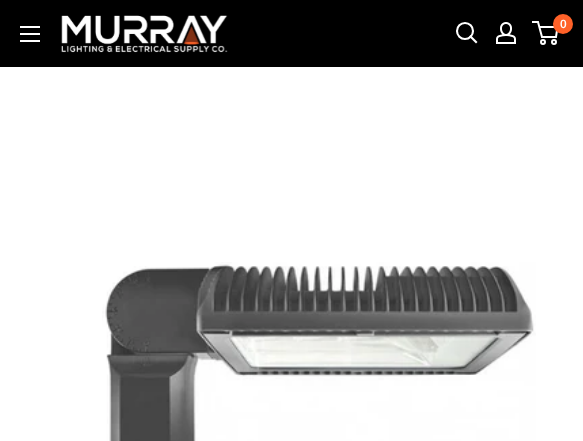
<svg xmlns="http://www.w3.org/2000/svg" width="583" height="441" viewBox="0 0 583 441">
  <style>
    .t1 { font: 600 12px Arimo; fill: #fff; }
  </style>
  <rect width="100%" height="100%" fill="#fff"/>
  <rect x="0" y="0" width="583" height="67" fill="#000"/>
  <image x="61" y="15" width="167" height="38" href="images/1.png"/>
  <path d="M476 42L470.5 36.5" fill="none" stroke="#fff" stroke-width="2.1" stroke-linecap="square"/>
  <circle cx="465" cy="31" r="8" fill="none" stroke="#fff" stroke-width="2.1"/>
  <image x="496" y="22" width="20" height="22" href="images/2.png"/>
  <circle cx="543" cy="42" r="2" fill="none" stroke="#fff" stroke-width="2"/>
  <circle cx="554" cy="42" r="2" fill="none" stroke="#fff" stroke-width="2"/>
  <path d="M539.5 27H557.5L556 37H542L538 22H532" fill="none" stroke="#fff" stroke-width="2"/>
  <circle cx="563" cy="24" r="10" fill="#ff6128"/>
  <text x="560" y="28" class="t1">0</text>
  <image x="20" y="26" width="20" height="16" href="images/3.png"/>
  <image x="102" y="262" width="434" height="179" href="images/4.png"/>
</svg>
